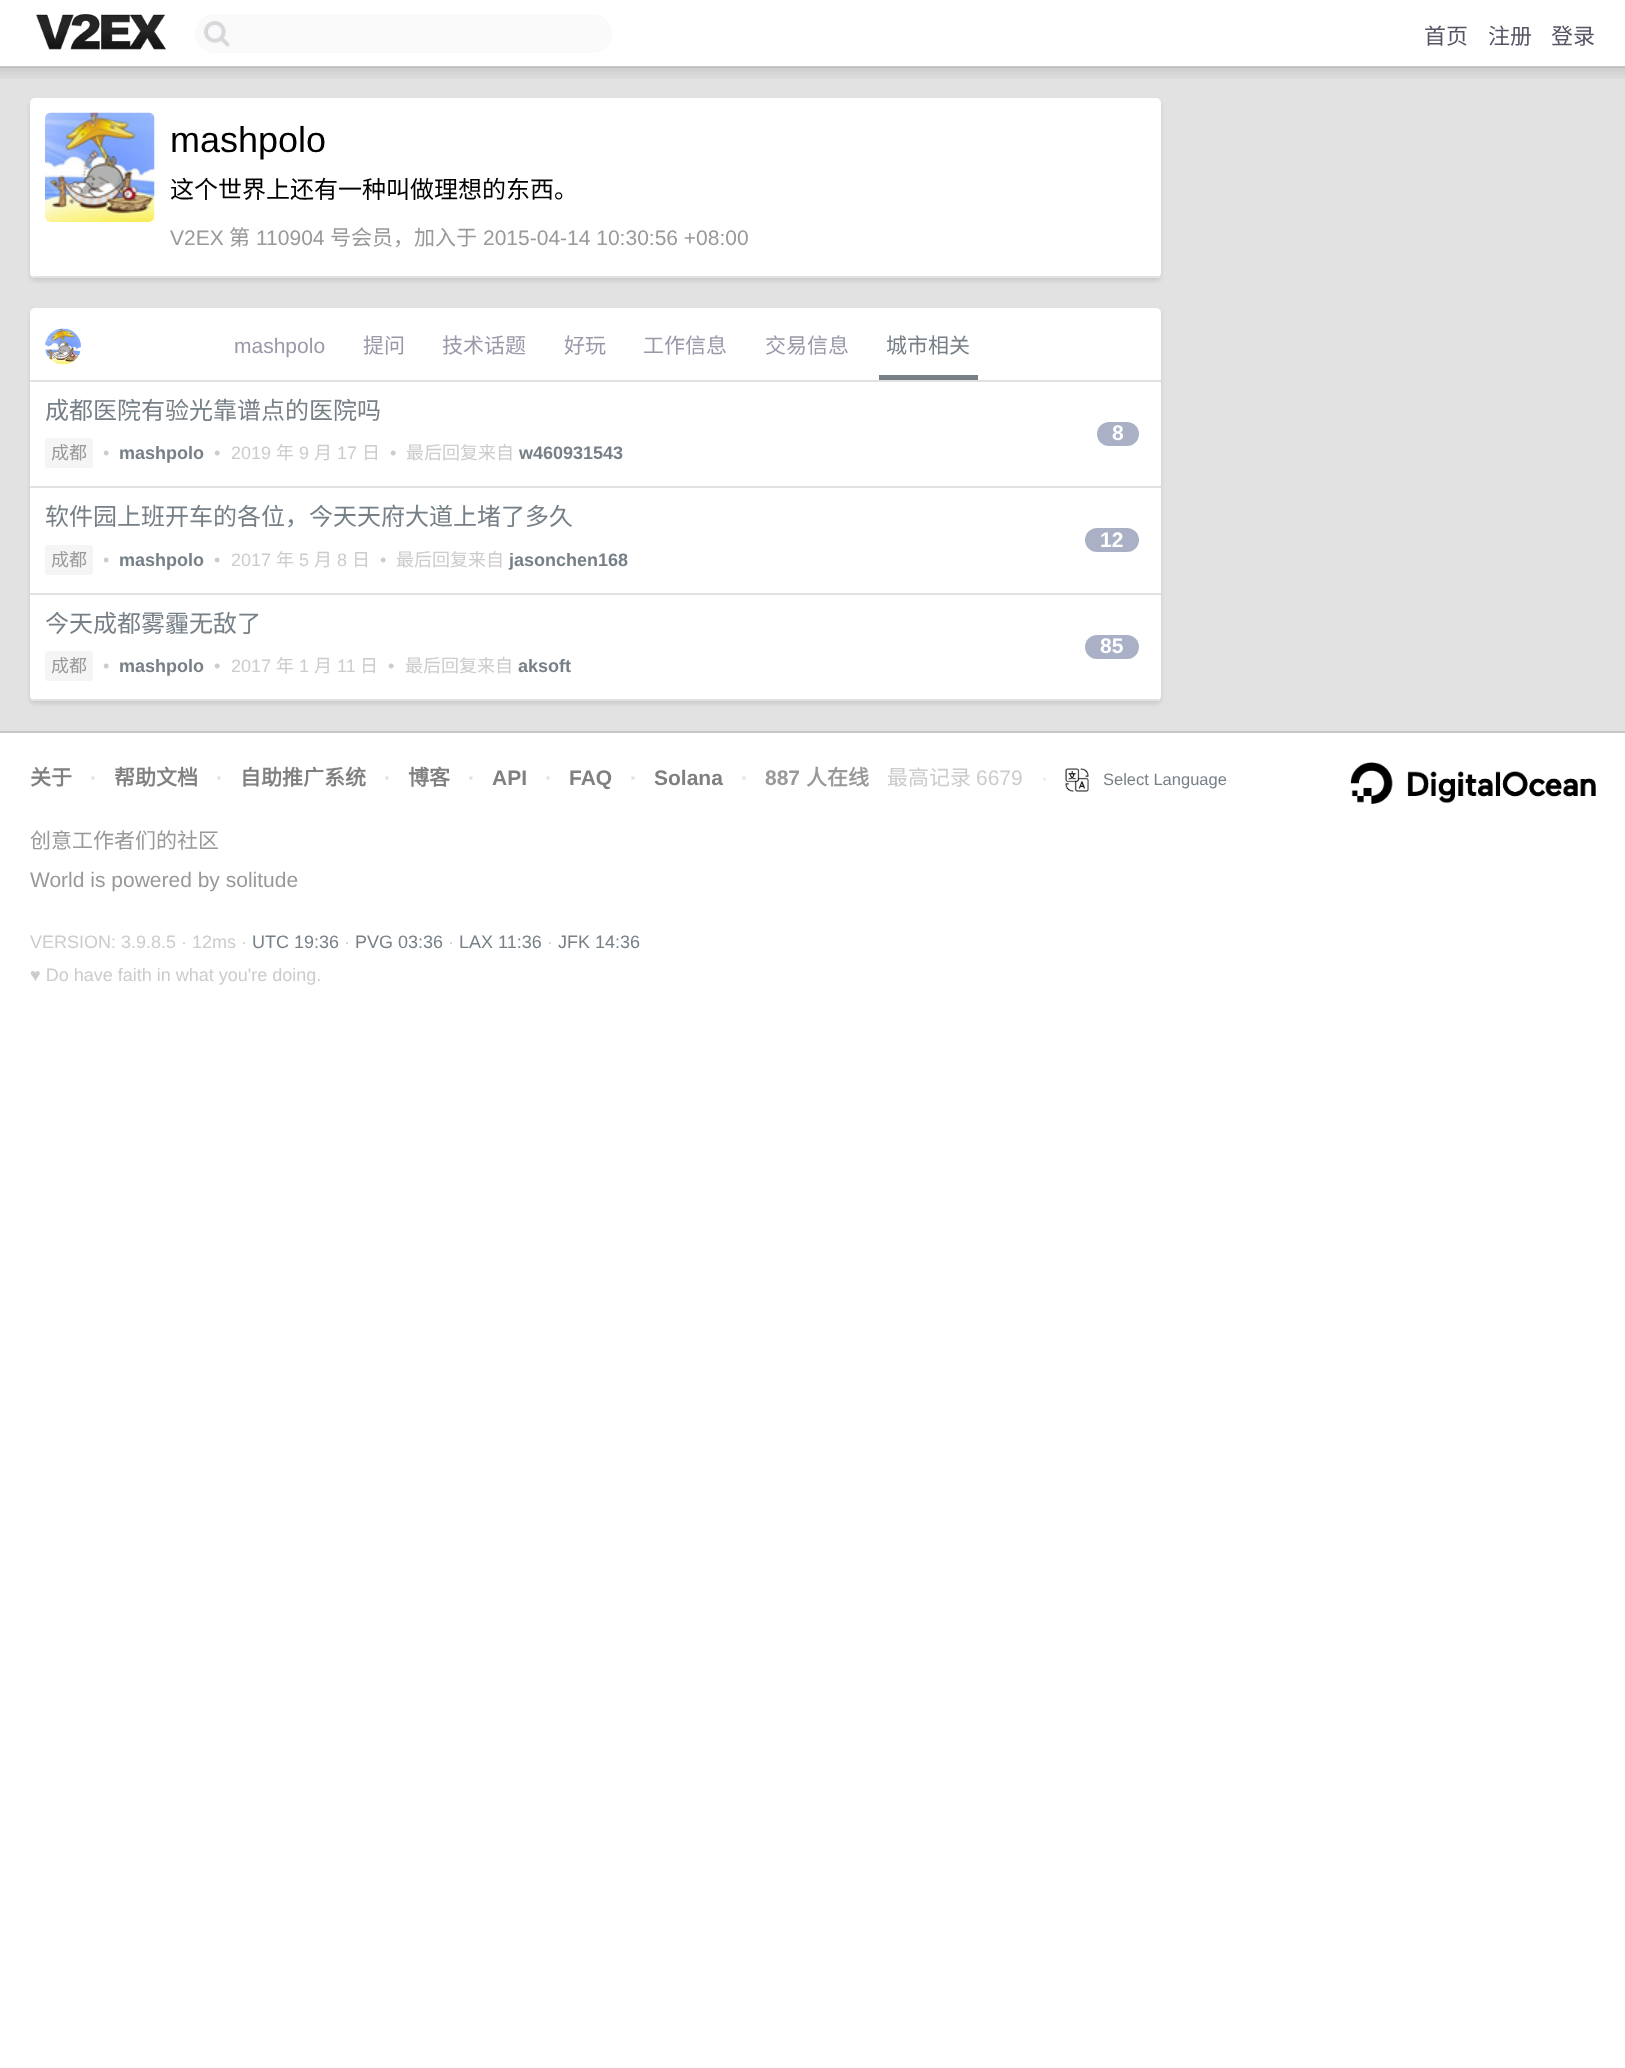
<svg xmlns="http://www.w3.org/2000/svg" width="1625" height="2068" viewBox="0 0 1625 2068">
  <style>
    .t1 { font: 22px Noto Sans CJK SC; fill: #556; }
    .t2 { font: 36px Liberation Sans; fill: #000; }
    .t3 { font: 24px Noto Sans CJK SC; fill: #000; }
    .t4 { font: 21px Liberation Sans; fill: #999; }
    .t5 { font: 21px Noto Sans CJK SC; fill: #999; }
    .t6 { font: 21px Liberation Sans; fill: #99a; }
    .t7 { font: 21px Noto Sans CJK SC; fill: #99a; }
    .t8 { font: 21px Noto Sans CJK SC; fill: #778087; }
    .t9 { font: 24px Noto Sans CJK SC; fill: #778087; }
    .t10 { font: 18px Noto Sans CJK SC; fill: #999; }
    .t11 { font: 18px Liberation Sans; fill: #ccc; }
    .t12 { font: bold 18px Liberation Sans; fill: #778087; }
    .t13 { font: 18px Noto Sans CJK SC; fill: #ccc; }
    .t14 { font: bold 21px Liberation Sans; fill: #fff; }
    .t15 { font: bold 21px Noto Sans CJK SC; fill: #808080; }
    .t16 { font: bold 21px Liberation Sans; fill: #e2e2e2; }
    .t17 { font: bold 21px Liberation Sans; fill: #808080; }
    .t18 { font: bold 21px Liberation Sans; fill: #999; }
    .t19 { font: bold 21px Noto Sans CJK SC; fill: #999; }
    .t20 { font: 21px Noto Sans CJK SC; fill: #ccc; }
    .t21 { font: 21px Liberation Sans; fill: #ccc; }
    .t22 { font: 21px Liberation Sans; fill: #e2e2e2; }
    .t23 { font: 16.5px Liberation Sans; fill: #778087; }
    .t24 { font: 18px Liberation Sans; fill: #778087; }
  </style>
  <rect width="100%" height="100%" fill="#fff"/>
  <rect x="0" y="66" width="1625" height="2" fill="#c7c7c7"/>
  <image x="36" y="14" width="130" height="36" href="images/1.png"/>
  <rect x="195" y="14" width="417" height="39" rx="19.5" fill="#fafafa"/>
  <image x="204" y="21" width="26" height="26" href="images/2.png"/>
  <text x="1424" y="44" class="t1">首页</text>
  <text x="1488" y="44" class="t1">注册</text>
  <text x="1551" y="44" class="t1">登录</text>
  <rect x="0" y="68" width="1625" height="663" fill="#e2e2e2"/>
  <image x="0" y="67" width="1625" height="12" href="images/3.png"/>
  <rect x="30" y="101" width="1131" height="180" rx="5" fill="#0000001a" filter="blur(2px)"/>
  <rect x="30" y="98" width="1131" height="180" rx="5" fill="#fff"/>
  <rect x="33" y="276" width="1127" height="2" fill="#e2e2e2"/>
  <image x="45" y="112" width="110" height="110" href="images/4.png"/>
  <text x="170" y="152" class="t2">mashpolo</text>
  <text x="170" y="198" class="t3">这个世界上还有一种叫做理想的东西。</text>
  <text x="170" y="245" class="t4">V2EX</text>
  <text x="229" y="245" class="t5">第</text>
  <text x="256" y="245" class="t4">110904</text>
  <text x="330" y="245" class="t5">号会员，加入于</text>
  <text x="483" y="245" class="t4">2015-04-14 10:30:56 +08:00</text>
  <rect x="30" y="311" width="1131" height="393" rx="5" fill="#0000001a" filter="blur(2px)"/>
  <rect x="30" y="308" width="1131" height="393" rx="5" fill="#fff"/>
  <rect x="33" y="699" width="1127" height="2" fill="#e2e2e2"/>
  <rect x="30" y="380" width="1131" height="2" fill="#e2e2e2"/>
  <image x="45" y="328" width="36" height="37" href="images/5.png"/>
  <text x="234" y="353" class="t6">mashpolo</text>
  <text x="363" y="353" class="t7">提问</text>
  <text x="442" y="353" class="t7">技术话题</text>
  <text x="564" y="353" class="t7">好玩</text>
  <text x="643" y="353" class="t7">工作信息</text>
  <text x="765" y="353" class="t7">交易信息</text>
  <rect x="879" y="375" width="99" height="5" fill="#778087"/>
  <text x="886" y="353" class="t8">城市相关</text>
  <rect x="30" y="486" width="1131" height="2" fill="#e2e2e2"/>
  <text x="45" y="419" class="t9">成都医院有验光靠谱点的医院吗</text>
  <rect x="45" y="438" width="48" height="30" rx="3" fill="#f5f5f5"/>
  <text x="51" y="459" class="t10">成都</text>
  <text x="103" y="459" class="t11">•</text>
  <text x="119" y="459" class="t12">mashpolo</text>
  <text x="214" y="459" class="t11">•</text>
  <text x="231" y="459" class="t11">2019</text>
  <text x="276" y="459" class="t13">年</text>
  <text x="299" y="459" class="t11">9</text>
  <text x="314" y="459" class="t13">月</text>
  <text x="337" y="459" class="t11">17</text>
  <text x="362" y="459" class="t13">日</text>
  <text x="390" y="459" class="t11">•</text>
  <text x="406" y="459" class="t13">最后回复来自</text>
  <text x="519" y="459" class="t12">w460931543</text>
  <rect x="1097" y="422" width="42" height="24" rx="12" fill="#aab0c6"/>
  <text x="1112" y="440" class="t14">8</text>
  <rect x="30" y="593" width="1131" height="2" fill="#e2e2e2"/>
  <text x="45" y="525" class="t9">软件园上班开车的各位，今天天府大道上堵了多久</text>
  <rect x="45" y="545" width="48" height="30" rx="3" fill="#f5f5f5"/>
  <text x="51" y="566" class="t10">成都</text>
  <text x="103" y="566" class="t11">•</text>
  <text x="119" y="566" class="t12">mashpolo</text>
  <text x="214" y="566" class="t11">•</text>
  <text x="231" y="566" class="t11">2017</text>
  <text x="276" y="566" class="t13">年</text>
  <text x="299" y="566" class="t11">5</text>
  <text x="314" y="566" class="t13">月</text>
  <text x="337" y="566" class="t11">8</text>
  <text x="352" y="566" class="t13">日</text>
  <text x="380" y="566" class="t11">•</text>
  <text x="396" y="566" class="t13">最后回复来自</text>
  <text x="509" y="566" class="t12">jasonchen168</text>
  <rect x="1085" y="528" width="54" height="24" rx="12" fill="#aab0c6"/>
  <text x="1100" y="547" class="t14">12</text>
  <text x="45" y="632" class="t9">今天成都雾霾无敌了</text>
  <rect x="45" y="651" width="48" height="30" rx="3" fill="#f5f5f5"/>
  <text x="51" y="672" class="t10">成都</text>
  <text x="103" y="672" class="t11">•</text>
  <text x="119" y="672" class="t12">mashpolo</text>
  <text x="214" y="672" class="t11">•</text>
  <text x="231" y="672" class="t11">2017</text>
  <text x="276" y="672" class="t13">年</text>
  <text x="299" y="672" class="t11">1</text>
  <text x="314" y="672" class="t13">月</text>
  <text x="337" y="672" class="t11">11</text>
  <text x="360" y="672" class="t13">日</text>
  <text x="388" y="672" class="t11">•</text>
  <text x="405" y="672" class="t13">最后回复来自</text>
  <text x="518" y="672" class="t12">aksoft</text>
  <rect x="1085" y="635" width="54" height="24" rx="12" fill="#aab0c6"/>
  <text x="1100" y="653" class="t14">85</text>
  <rect x="0" y="731" width="1625" height="2" fill="#c7c7c7"/>
  <text x="30" y="785" class="t15">关于</text>
  <text x="90" y="785" class="t16">·</text>
  <text x="114" y="785" class="t15">帮助文档</text>
  <text x="216" y="785" class="t16">·</text>
  <text x="240" y="785" class="t15">自助推广系统</text>
  <text x="384" y="785" class="t16">·</text>
  <text x="408" y="785" class="t15">博客</text>
  <text x="468" y="785" class="t16">·</text>
  <text x="492" y="785" class="t17">API</text>
  <text x="545" y="785" class="t16">·</text>
  <text x="569" y="785" class="t17">FAQ</text>
  <text x="630" y="785" class="t16">·</text>
  <text x="654" y="785" class="t17">Solana</text>
  <text x="741" y="785" class="t16">·</text>
  <text x="765" y="785" class="t18">887</text>
  <text x="806" y="785" class="t19">人在线</text>
  <text x="887" y="785" class="t20">最高记录</text>
  <text x="976" y="785" class="t21">6679</text>
  <text x="1041" y="785" class="t22">·</text>
  <image x="1065" y="768" width="24" height="24" href="images/6.png"/>
  <text x="1103" y="785" class="t23">Select Language</text>
  <image x="1350" y="762" width="246" height="42" href="images/7.png"/>
  <text x="30" y="848" class="t5">创意工作者们的社区</text>
  <text x="30" y="887" class="t4">World is powered by solitude</text>
  <text x="30" y="948" class="t11">VERSION: 3.9.8.5 · 12ms ·</text>
  <text x="252" y="948" class="t24">UTC 19:36</text>
  <text x="344" y="948" class="t11">·</text>
  <text x="355" y="948" class="t24">PVG 03:36</text>
  <text x="448" y="948" class="t11">·</text>
  <text x="459" y="948" class="t24">LAX 11:36</text>
  <text x="547" y="948" class="t11">·</text>
  <text x="558" y="948" class="t24">JFK 14:36</text>
  <text x="30" y="981" class="t11">♥ Do have faith in what you're doing.</text>
</svg>
